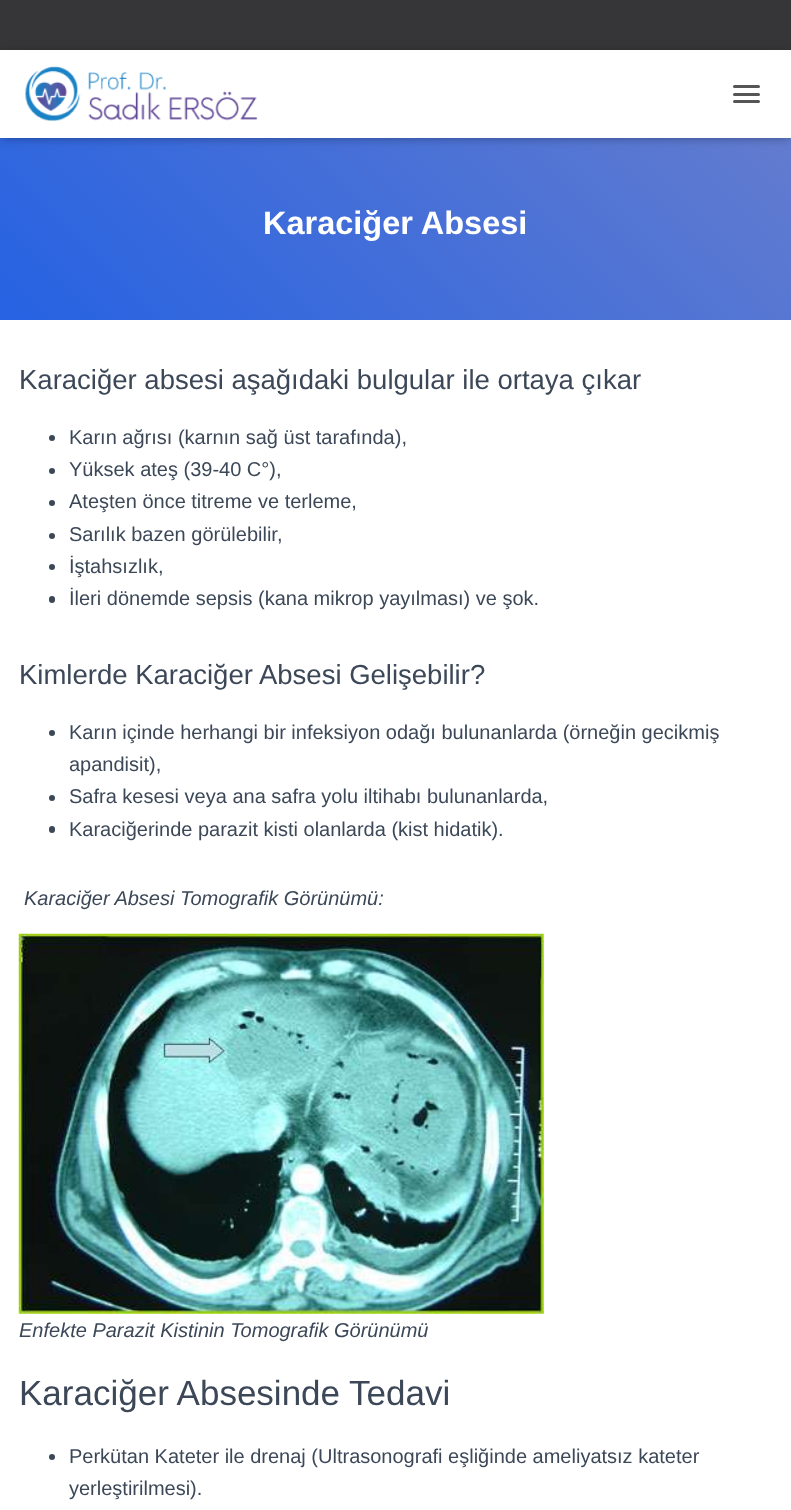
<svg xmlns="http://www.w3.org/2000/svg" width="791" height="1510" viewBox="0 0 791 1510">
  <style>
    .t1 { font: bold 32.5px Liberation Sans; fill: #fff; }
    .t2 { font: 27.5px Liberation Sans; fill: #3c4858; }
    .t3 { font: 20px Liberation Sans; fill: #3c4858; }
    .t4 { font: italic 20px Liberation Sans; fill: #3c4858; }
    .t5 { font: 35px Liberation Sans; fill: #3c4858; }
  </style>
  <defs>
    <linearGradient id="g1" gradientUnits="userSpaceOnUse" x1="130" y1="450" x2="661" y2="-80"><stop offset="0" stop-color="#2662e2"/><stop offset="1" stop-color="#687ecd"/></linearGradient>
  </defs>
  <rect width="100%" height="100%" fill="#363537"/>
  <rect x="0" y="138" width="791" height="182" fill="url(#g1)"/>
  <rect x="3" y="58" width="786" height="82" fill="#0000001a" filter="blur(3px)"/>
  <rect x="0" y="51" width="791" height="88" fill="#0000001f" filter="blur(6px)"/>
  <rect x="8" y="59" width="776" height="72" fill="#0000006b" filter="blur(6px)"/>
  <rect x="0" y="50" width="791" height="88" fill="#fff"/>
  <image x="25" y="66" width="233" height="55" href="images/1.png"/>
  <rect x="733" y="85" width="27" height="3" rx="1.5" fill="#555"/>
  <rect x="733" y="93" width="27" height="3" rx="1.5" fill="#555"/>
  <rect x="733" y="100" width="27" height="3" rx="1.5" fill="#555"/>
  <text x="263" y="234" class="t1">Karaciğer Absesi</text>
  <rect x="0" y="320" width="791" height="1190" fill="#fff"/>
  <text x="19" y="389" class="t2">Karaciğer absesi aşağıdaki bulgular ile ortaya çıkar</text>
  <circle cx="52" cy="438" r="3" fill="#3c4858"/>
  <text x="69" y="444" class="t3">Karın ağrısı (karnın sağ üst tarafında),</text>
  <circle cx="52" cy="471" r="3" fill="#3c4858"/>
  <text x="69" y="476" class="t3">Yüksek ateş (39-40 C°),</text>
  <circle cx="52" cy="503" r="3" fill="#3c4858"/>
  <text x="69" y="508" class="t3">Ateşten önce titreme ve terleme,</text>
  <circle cx="52" cy="536" r="3" fill="#3c4858"/>
  <text x="69" y="541" class="t3">Sarılık bazen görülebilir,</text>
  <circle cx="52" cy="567" r="3" fill="#3c4858"/>
  <text x="69" y="573" class="t3">İştahsızlık,</text>
  <rect x="49" y="596" width="6" height="7" rx="3" fill="#3c4858"/>
  <text x="69" y="605" class="t3">İleri dönemde sepsis (kana mikrop yayılması) ve şok.</text>
  <text x="19" y="684" class="t2">Kimlerde Karaciğer Absesi Gelişebilir?</text>
  <circle cx="52" cy="733" r="3" fill="#3c4858"/>
  <text x="69" y="739" class="t3">Karın içinde herhangi bir infeksiyon odağı bulunanlarda (örneğin gecikmiş</text>
  <text x="69" y="771" class="t3">apandisit),</text>
  <circle cx="52" cy="798" r="3" fill="#3c4858"/>
  <text x="69" y="803" class="t3">Safra kesesi veya ana safra yolu iltihabı bulunanlarda,</text>
  <rect x="49" y="826" width="6" height="7" rx="3" fill="#3c4858"/>
  <text x="69" y="836" class="t3">Karaciğerinde parazit kisti olanlarda (kist hidatik).</text>
  <text x="24" y="905" class="t4">Karaciğer Absesi Tomografik Görünümü:</text>
  <image x="18" y="933" width="526" height="381" href="images/2.png"/>
  <text x="19" y="1337" class="t4">Enfekte Parazit Kistinin Tomografik Görünümü</text>
  <text x="19" y="1405" class="t5">Karaciğer Absesinde Tedavi</text>
  <circle cx="52" cy="1457" r="3" fill="#3c4858"/>
  <text x="69" y="1463" class="t3">Perkütan Kateter ile drenaj (Ultrasonografi eşliğinde ameliyatsız kateter</text>
  <text x="69" y="1495" class="t3">yerleştirilmesi).</text>
</svg>
